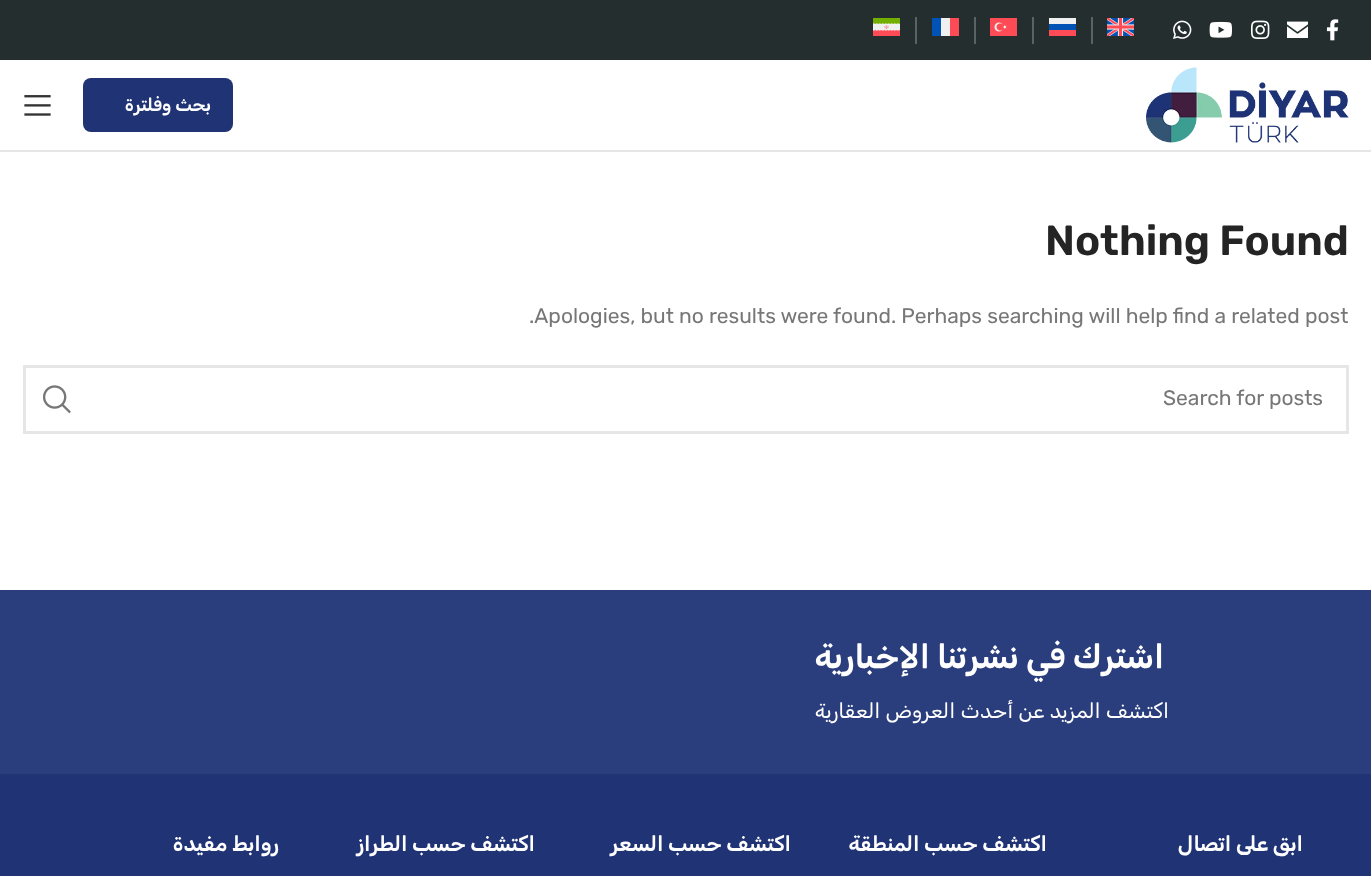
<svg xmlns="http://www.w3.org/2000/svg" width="1371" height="876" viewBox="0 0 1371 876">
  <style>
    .t1 { font: 600 18px Rubik; direction: rtl; fill: #fff; }
    .t2 { font: 600 42px Rubik; fill: #242424; }
    .t3 { font: 21px Rubik; fill: #777; }
    .t4 { font: 600 33px Rubik; direction: rtl; fill: #fff; }
    .t5 { font: 21px Rubik; direction: rtl; fill: #fff; }
    .t6 { font: 600 21px Rubik; direction: rtl; fill: #fff; }
  </style>
  <rect width="100%" height="100%" fill="#fff"/>
  <rect x="0" y="0" width="1371" height="60" fill="#242e2f"/>
  <image x="1326" y="19" width="13" height="22" href="images/1.png"/>
  <image x="1287" y="21" width="21" height="17" href="images/2.png"/>
  <image x="1251" y="20" width="19" height="19" href="images/3.png"/>
  <image x="1209" y="21" width="23" height="17" href="images/4.png"/>
  <image x="1173" y="20" width="19" height="19" href="images/5.png"/>
  <image x="1107" y="18" width="27" height="18" href="images/6.png"/>
  <rect x="1091" y="17" width="2" height="27" fill="#5b6263"/>
  <rect x="1049" y="18" width="27" height="6" fill="#f0f0f0"/>
  <rect x="1049" y="24" width="27" height="6" fill="#0052b4"/>
  <rect x="1049" y="30" width="27" height="6" fill="#ff4b55"/>
  <rect x="1032" y="17" width="2" height="27" fill="#5b6263"/>
  <image x="990" y="18" width="27" height="18" href="images/7.png"/>
  <rect x="974" y="17" width="2" height="27" fill="#5b6263"/>
  <rect x="950" y="18" width="9" height="18" fill="#ff4b55"/>
  <rect x="941" y="18" width="9" height="18" fill="#f0f0f0"/>
  <rect x="932" y="18" width="9" height="18" fill="#0052b4"/>
  <rect x="915" y="17" width="2" height="27" fill="#5b6263"/>
  <image x="873" y="18" width="27" height="18" href="images/8.png"/>
  <rect x="0" y="150" width="1371" height="2" fill="#e6e6e6"/>
  <image x="1146" y="67" width="203" height="76" href="images/9.png"/>
  <rect x="83" y="78" width="150" height="54" rx="8" fill="#1f3375"/>
  <text x="211" y="111" class="t1">بحث وفلترة</text>
  <image x="24" y="95" width="27" height="21" href="images/10.png"/>
  <text x="1045" y="255" class="t2">Nothing Found</text>
  <text x="529" y="323" class="t3">.Apologies, but no results were found. Perhaps searching will help find a related post</text>
  <rect x="24.5" y="366.5" width="1323" height="66" fill="none" stroke="#e6e6e6" stroke-width="3"/>
  <text x="1163" y="405" class="t3">Search for posts</text>
  <image x="43" y="385" width="28" height="29" href="images/11.png"/>
  <rect x="0" y="590" width="1371" height="184" fill="#2a3d7c"/>
  <text x="1164" y="668" class="t4">اشترك في نشرتنا الإخبارية</text>
  <text x="1169" y="718" class="t5">اكتشف المزيد عن أحدث العروض العقارية</text>
  <rect x="0" y="774" width="1371" height="102" fill="#1f3375"/>
  <text x="1303" y="851" class="t6">ابق على اتصال</text>
  <text x="1047" y="851" class="t6">اكتشف حسب المنطقة</text>
  <text x="791" y="851" class="t6">اكتشف حسب السعر</text>
  <text x="535" y="851" class="t6">اكتشف حسب الطراز</text>
  <text x="279" y="851" class="t6">روابط مفيدة</text>
</svg>
